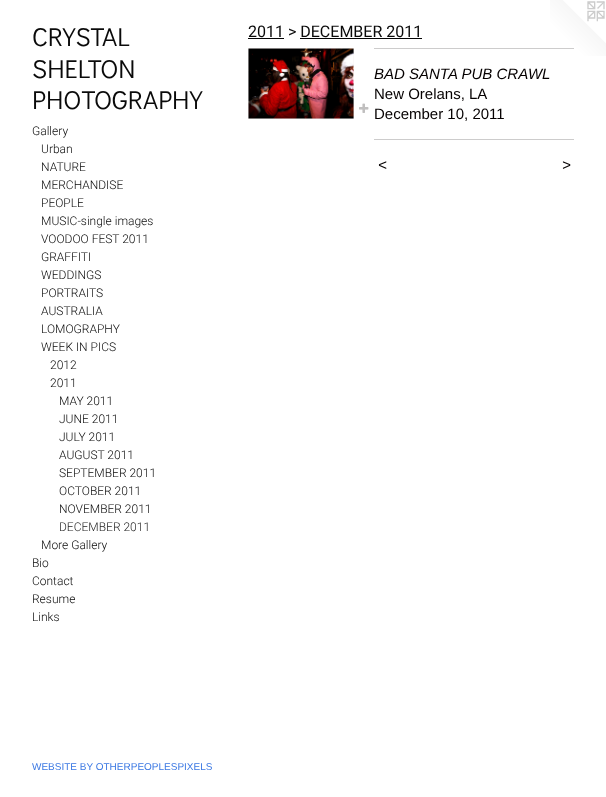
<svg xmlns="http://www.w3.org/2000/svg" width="606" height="797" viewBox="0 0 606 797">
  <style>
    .t1 { font: 26px Didact Gothic; fill: #0a0a0a; }
    .t2 { font: 300 12px Roboto; fill: #0a0a0a; }
    .t3 { font: 300 12px Roboto; fill: #1f1f1f; }
    .t4 { font: 10px Liberation Sans; fill: #3b78e3; }
    .t5 { font: 16px Roboto; fill: #0a0a0a; }
    .t6 { font: italic 15px Liberation Sans; fill: #050000; }
    .t7 { font: 15px Liberation Sans; fill: #050000; }
    .t8 { font: italic 15px Liberation Sans; letter-spacing: 1px; fill: #050000; }
  </style>
  <rect width="100%" height="100%" fill="#fff"/>
  <text x="32" y="46" class="t1">CRYSTAL</text>
  <text x="32" y="78" class="t1">SHELTON</text>
  <text x="32" y="109" class="t1">PHOTOGRAPHY</text>
  <text x="32" y="135" class="t2">Gallery</text>
  <text x="41" y="153" class="t2">Urban</text>
  <text x="41" y="171" class="t2">NATURE</text>
  <text x="41" y="189" class="t2">MERCHANDISE</text>
  <text x="41" y="207" class="t2">PEOPLE</text>
  <text x="41" y="225" class="t2">MUSIC-single images</text>
  <text x="41" y="243" class="t2">VOODOO FEST 2011</text>
  <text x="41" y="261" class="t2">GRAFFITI</text>
  <text x="41" y="279" class="t2">WEDDINGS</text>
  <text x="41" y="297" class="t2">PORTRAITS</text>
  <text x="41" y="315" class="t2">AUSTRALIA</text>
  <text x="41" y="333" class="t2">LOMOGRAPHY</text>
  <text x="41" y="351" class="t2">WEEK IN PICS</text>
  <text x="50" y="369" class="t2">2012</text>
  <text x="50" y="387" class="t2">2011</text>
  <text x="59" y="405" class="t2">MAY 2011</text>
  <text x="59" y="423" class="t2">JUNE 2011</text>
  <text x="59" y="441" class="t2">JULY 2011</text>
  <text x="59" y="459" class="t2">AUGUST 2011</text>
  <text x="59" y="477" class="t2">SEPTEMBER 2011</text>
  <text x="59" y="495" class="t2">OCTOBER 2011</text>
  <text x="59" y="513" class="t2">NOVEMBER 2011</text>
  <text x="59" y="531" class="t3">DECEMBER 2011</text>
  <text x="41" y="549" class="t2">More Gallery</text>
  <text x="32" y="567" class="t2">Bio</text>
  <text x="32" y="585" class="t2">Contact</text>
  <text x="32" y="603" class="t2">Resume</text>
  <text x="32" y="621" class="t2">Links</text>
  <text x="32" y="770" class="t4">WEBSITE BY OTHERPEOPLESPIXELS</text>
  <text x="248" y="37" class="t5">2011 &gt; DECEMBER 2011</text>
  <rect x="248" y="38" width="36" height="1" fill="#050505"/>
  <rect x="300" y="38" width="122" height="1" fill="#050505"/>
  <image x="248" y="48" width="106" height="71" href="images/1.png"/>
  <image x="359" y="103" width="10" height="10" href="images/2.png"/>
  <image x="550" y="0" width="56" height="56" href="images/3.png"/>
  <rect x="374" y="48" width="200" height="1" fill="#cdcccc"/>
  <text x="374" y="79" class="t6">BAD SANTA PUB CRAWL</text>
  <text x="374" y="99" class="t7">New Orelans, LA</text>
  <text x="374" y="119" class="t7">December 10, 2011</text>
  <rect x="374" y="139" width="200" height="1" fill="#cdcccc"/>
  <text x="378" y="170" class="t8">&lt;</text>
  <text x="562" y="170" class="t8">&gt;</text>
</svg>
